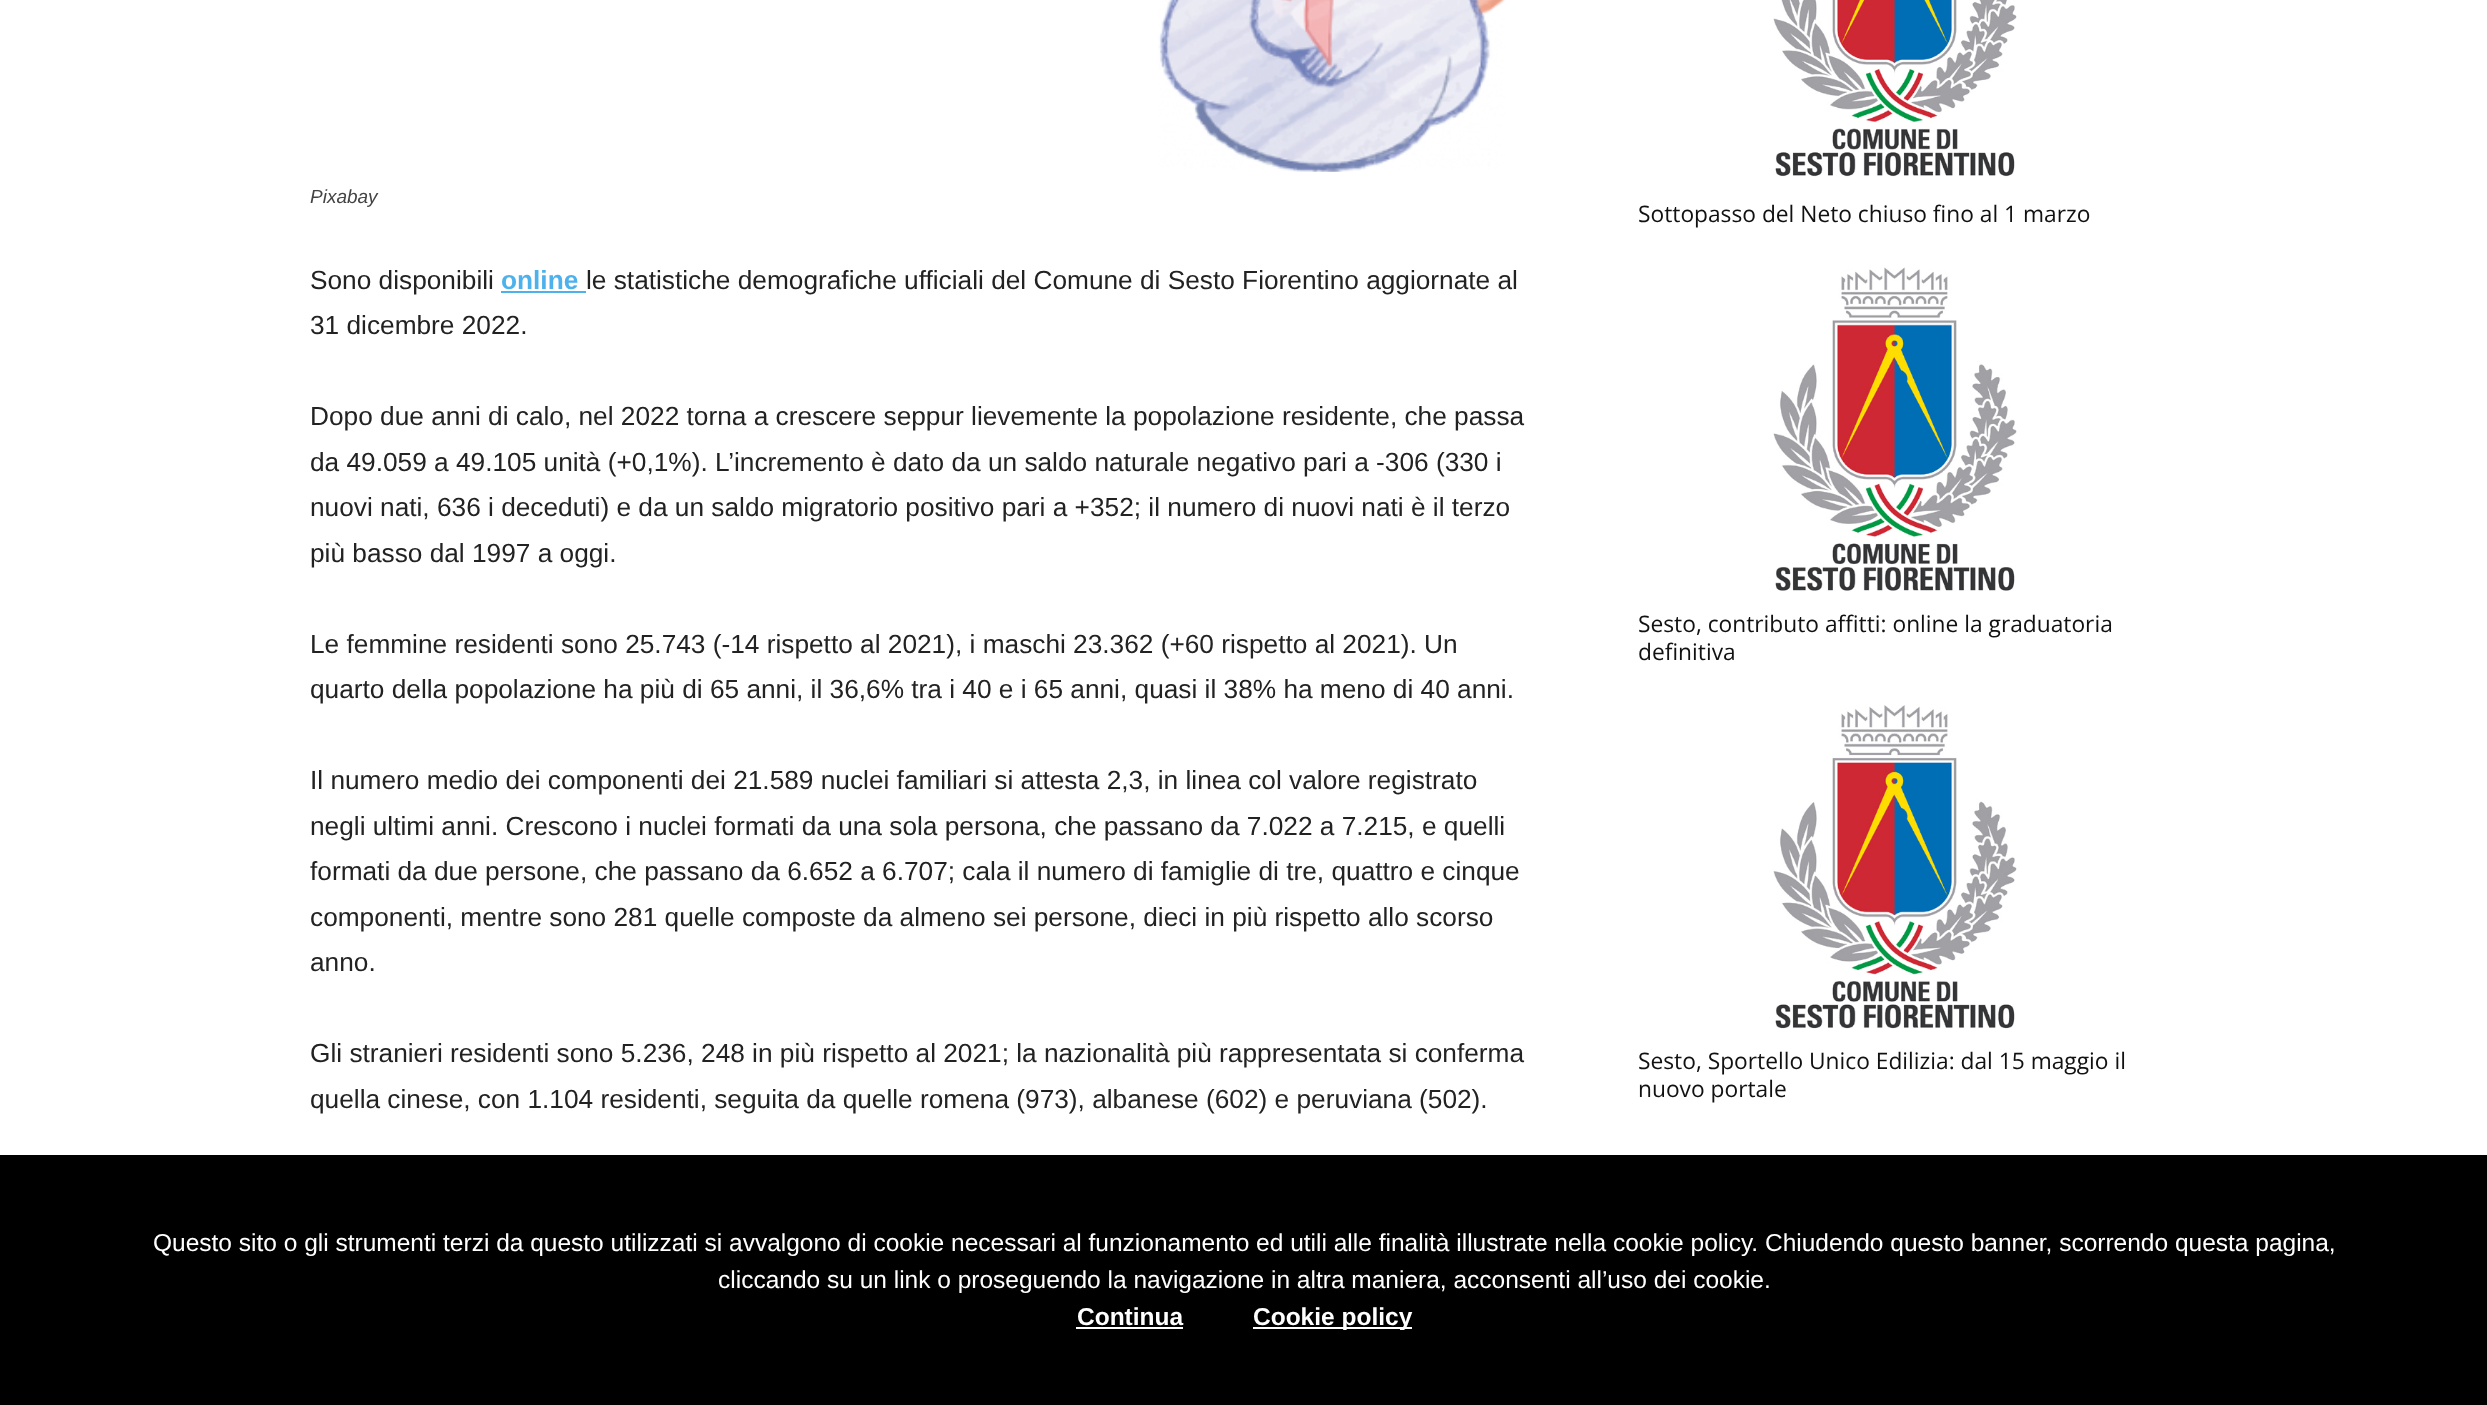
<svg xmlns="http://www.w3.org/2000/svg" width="2487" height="1405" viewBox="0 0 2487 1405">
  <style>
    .t1 { font: italic 19px Liberation Sans; fill: #444; }
    .t2 { font: 26.25px Liberation Sans; fill: #222; }
    .t3 { font: bold 26.25px Liberation Sans; fill: #4db2ec; }
    .t4 { font: 22.75px Open Sans; fill: #111; }
    .t5 { font: 24.5px Liberation Sans; fill: #fff; }
    .t6 { font: bold 24.5px Liberation Sans; fill: #fff; }
  </style>
  <rect width="100%" height="100%" fill="#fff"/>
  <image x="1158" y="0" width="348" height="172" href="images/1.png"/>
  <text x="310" y="203" class="t1">Pixabay</text>
  <text x="310" y="289" class="t2">Sono disponibili</text>
  <text x="501" y="289" class="t3">online</text>
  <rect x="501" y="291" width="85" height="2" fill="#4db2ec"/>
  <text x="586" y="289" class="t2">le statistiche demografiche ufficiali del Comune di Sesto Fiorentino aggiornate al</text>
  <text x="310" y="334" class="t2">31 dicembre 2022.</text>
  <text x="310" y="425" class="t2">Dopo due anni di calo, nel 2022 torna a crescere seppur lievemente la popolazione residente, che passa</text>
  <text x="310" y="471" class="t2">da 49.059 a 49.105 unità (+0,1%). L’incremento è dato da un saldo naturale negativo pari a -306 (330 i</text>
  <text x="310" y="516" class="t2">nuovi nati, 636 i deceduti) e da un saldo migratorio positivo pari a +352; il numero di nuovi nati è il terzo</text>
  <text x="310" y="562" class="t2">più basso dal 1997 a oggi.</text>
  <text x="310" y="653" class="t2">Le femmine residenti sono 25.743 (-14 rispetto al 2021), i maschi 23.362 (+60 rispetto al 2021). Un</text>
  <text x="310" y="698" class="t2">quarto della popolazione ha più di 65 anni, il 36,6% tra i 40 e i 65 anni, quasi il 38% ha meno di 40 anni.</text>
  <text x="310" y="789" class="t2">Il numero medio dei componenti dei 21.589 nuclei familiari si attesta 2,3, in linea col valore registrato</text>
  <text x="310" y="835" class="t2">negli ultimi anni. Crescono i nuclei formati da una sola persona, che passano da 7.022 a 7.215, e quelli</text>
  <text x="310" y="880" class="t2">formati da due persone, che passano da 6.652 a 6.707; cala il numero di famiglie di tre, quattro e cinque</text>
  <text x="310" y="926" class="t2">componenti, mentre sono 281 quelle composte da almeno sei persone, dieci in più rispetto allo scorso</text>
  <text x="310" y="971" class="t2">anno.</text>
  <text x="310" y="1062" class="t2">Gli stranieri residenti sono 5.236, 248 in più rispetto al 2021; la nazionalità più rappresentata si conferma</text>
  <text x="310" y="1108" class="t2">quella cinese, con 1.104 residenti, seguita da quelle romena (973), albanese (602) e peruviana (502).</text>
  <image x="1773" y="0" width="244" height="177" href="images/2.png"/>
  <text x="1638" y="222" class="t4">Sottopasso del Neto chiuso fino al 1 marzo</text>
  <image x="1773" y="267" width="244" height="324" href="images/3.png"/>
  <text x="1638" y="632" class="t4">Sesto, contributo affitti: online la graduatoria</text>
  <text x="1638" y="660" class="t4">definitiva</text>
  <image x="1773" y="705" width="244" height="324" href="images/4.png"/>
  <text x="1638" y="1069" class="t4">Sesto, Sportello Unico Edilizia: dal 15 maggio il</text>
  <text x="1638" y="1097" class="t4">nuovo portale</text>
  <rect x="0" y="1155" width="2487" height="250" fill="#000"/>
  <text x="153" y="1251" class="t5">Questo sito o gli strumenti terzi da questo utilizzati si avvalgono di cookie necessari al funzionamento ed utili alle finalità illustrate nella cookie policy. Chiudendo questo banner, scorrendo questa pagina,</text>
  <text x="718" y="1288" class="t5">cliccando su un link o proseguendo la navigazione in altra maniera, acconsenti all’uso dei cookie.</text>
  <text x="1077" y="1325" class="t6">Continua</text>
  <rect x="1076" y="1327" width="107" height="2" fill="#fff"/>
  <rect x="1253" y="1327" width="159" height="2" fill="#fff"/>
  <text x="1253" y="1325" class="t6">Cookie policy</text>
</svg>
